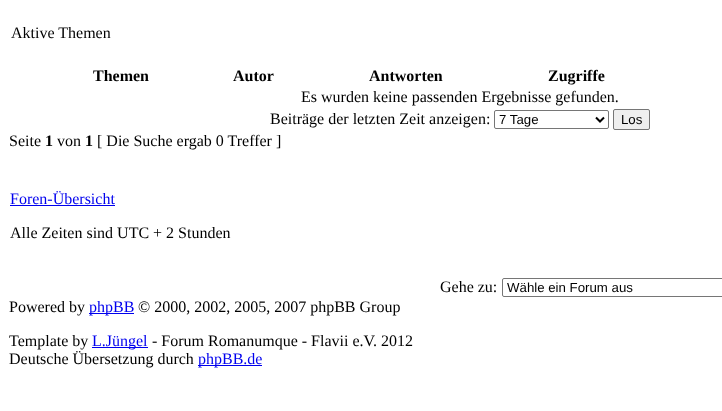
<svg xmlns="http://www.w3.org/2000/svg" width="722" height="411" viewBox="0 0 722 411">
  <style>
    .t1 { font: 16px Liberation Serif; fill: #000; }
    .t2 { font: bold 16px Liberation Serif; fill: #000; }
    .t3 { font: 13.25px Liberation Sans; fill: #000; }
    .t4 { font: 16px Liberation Serif; fill: #00e; }
  </style>
  <rect width="100%" height="100%" fill="#fff"/>
  <text x="11" y="38" class="t1">Aktive Themen</text>
  <text x="93" y="81" class="t2">Themen</text>
  <text x="233" y="81" class="t2">Autor</text>
  <text x="369" y="81" class="t2">Antworten</text>
  <text x="548" y="81" class="t2">Zugriffe</text>
  <text x="301" y="102" class="t1">Es wurden keine passenden Ergebnisse gefunden.</text>
  <text x="270" y="124" class="t1">Beiträge der letzten Zeit anzeigen:</text>
  <rect x="494.5" y="110.5" width="114" height="18" rx="1.5" fill="none" stroke="#767676"/>
  <path d="M596 117.5L600 121.5L604 117.5" fill="none" stroke="#000" stroke-width="2"/>
  <text x="499" y="124" class="t3">7 Tage</text>
  <rect x="613.5" y="109.5" width="36" height="20" rx="1.5" fill="#efefef" stroke="#767676"/>
  <text x="621" y="124" class="t3">Los</text>
  <text x="9" y="146" class="t1">Seite</text>
  <text x="45" y="146" class="t2">1</text>
  <text x="57" y="146" class="t1">von</text>
  <text x="85" y="146" class="t2">1</text>
  <text x="97" y="146" class="t1">[ Die Suche ergab 0 Treffer ]</text>
  <text x="10" y="204" class="t4">Foren-Übersicht</text>
  <rect x="10" y="205" width="105" height="1" fill="#00e"/>
  <text x="10" y="238" class="t1">Alle Zeiten sind UTC + 2 Stunden</text>
  <text x="440" y="292" class="t1">Gehe zu:</text>
  <rect x="502.5" y="278.5" width="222" height="18" rx="1.5" fill="none" stroke="#767676"/>
  <text x="507" y="292" class="t3">Wähle ein Forum aus</text>
  <text x="9" y="312" class="t1">Powered by</text>
  <rect x="89" y="313" width="45" height="1" fill="#00e"/>
  <text x="89" y="312" class="t4">phpBB</text>
  <text x="138" y="312" class="t1">© 2000, 2002, 2005, 2007 phpBB Group</text>
  <text x="9" y="346" class="t1">Template by</text>
  <rect x="92" y="347" width="56" height="1" fill="#00e"/>
  <text x="92" y="346" class="t4">L.Jüngel</text>
  <text x="152" y="346" class="t1">- Forum Romanumque - Flavii e.V. 2012</text>
  <text x="9" y="364" class="t1">Deutsche Übersetzung durch</text>
  <rect x="198" y="365" width="64" height="1" fill="#00e"/>
  <text x="198" y="364" class="t4">phpBB.de</text>
</svg>
